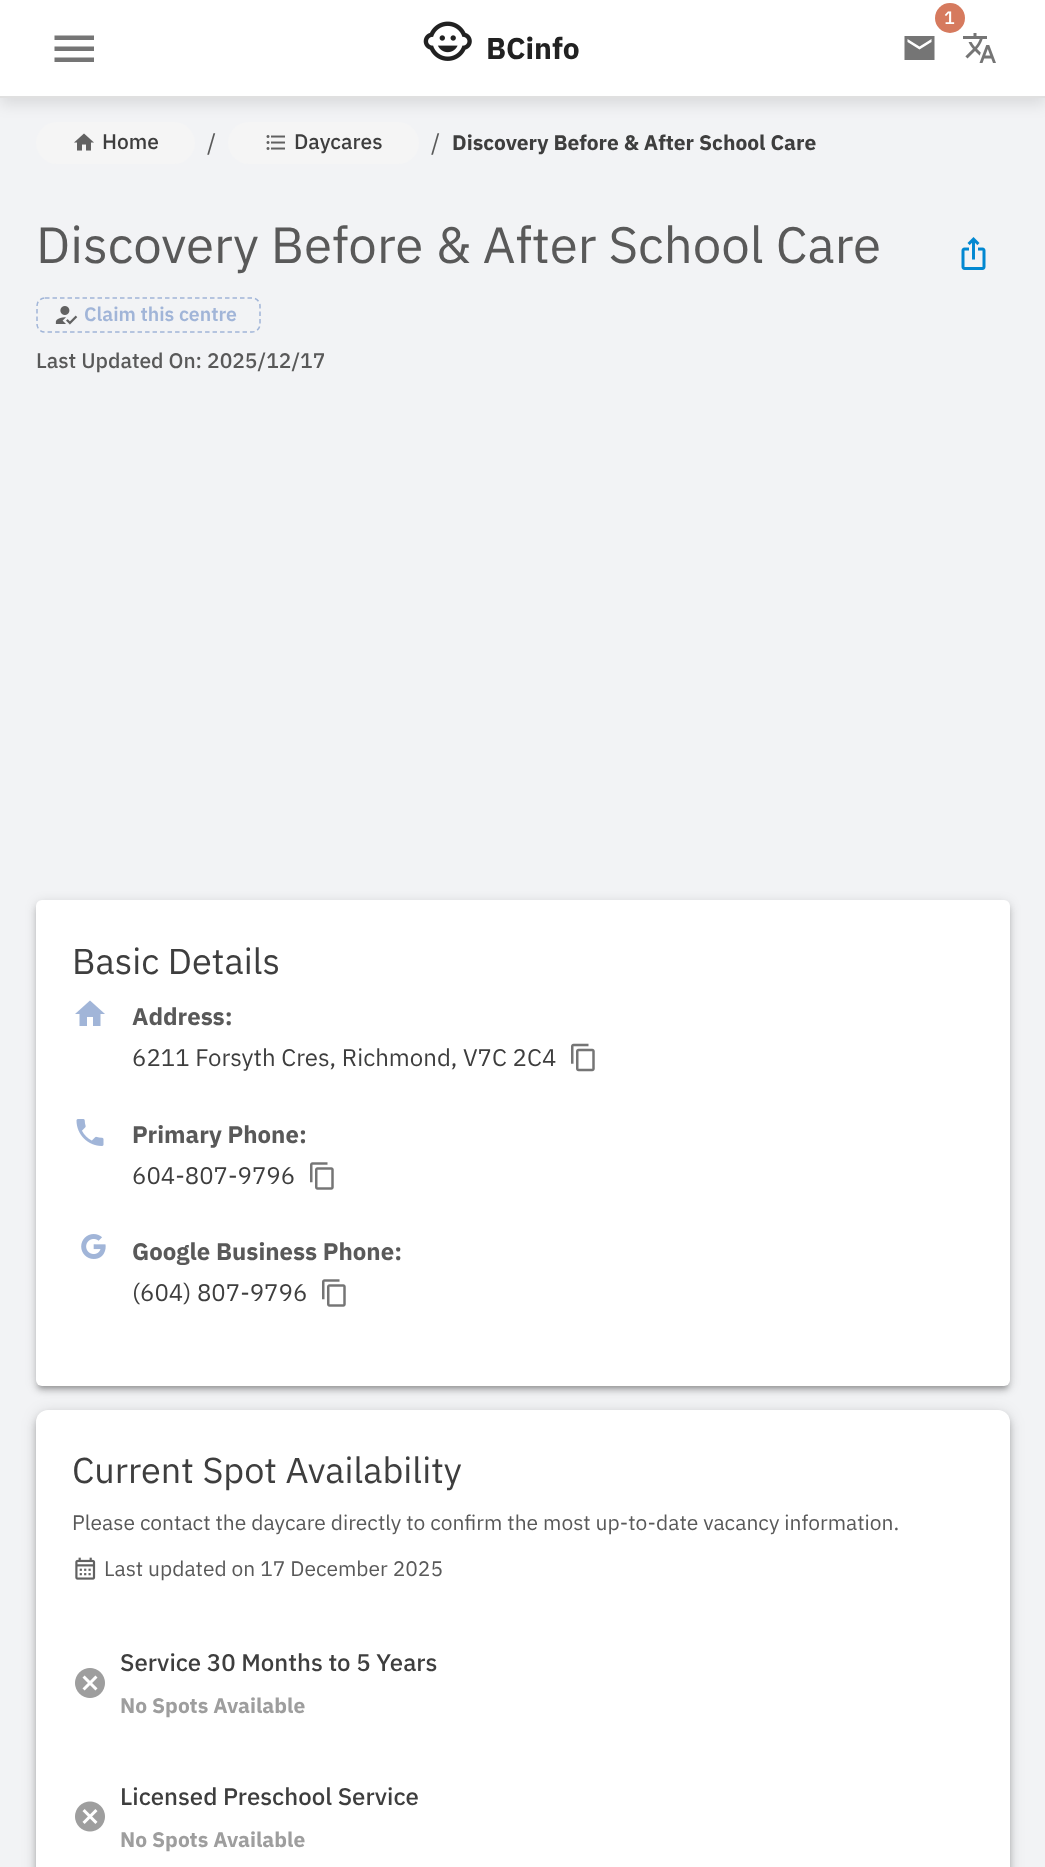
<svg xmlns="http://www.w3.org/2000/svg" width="1045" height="1867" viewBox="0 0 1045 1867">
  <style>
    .t1 { font: 500 18px IBM Plex Sans; fill: #fff; }
    .t2 { font: bold 30px IBM Plex Sans; fill: #212121; }
    .t3 { font: 500 21px IBM Plex Sans; fill: #3e3e3e; }
    .t4 { font: 24px IBM Plex Sans; fill: #595959; }
    .t5 { font: bold 21px IBM Plex Sans; fill: #3e3e3e; }
    .t6 { font: 51px IBM Plex Sans; fill: #595959; }
    .t7 { font: 600 19.5px IBM Plex Sans; fill: #a1b5d8; }
    .t8 { font: 500 21px IBM Plex Sans; fill: #595959; }
    .t9 { font: 36px IBM Plex Sans; fill: #3e3e3e; }
    .t10 { font: bold 24px IBM Plex Sans; fill: #595959; }
    .t11 { font: 24px IBM Plex Sans; fill: #3e3e3e; }
    .t12 { font: 21px IBM Plex Sans; fill: #595959; }
    .t13 { font: 500 24px IBM Plex Sans; fill: #3e3e3e; }
    .t14 { font: bold 21px IBM Plex Sans; fill: #9e9e9e; }
  </style>
  <rect width="100%" height="100%" fill="#f2f3f5"/>
  <rect x="36" y="122" width="159" height="42" rx="21" fill="#f5f5f5"/>
  <rect x="228" y="122" width="191" height="42" rx="21" fill="#f5f5f5"/>
  <rect x="0" y="6" width="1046" height="98" fill="#0000001a" filter="blur(7.5px)"/>
  <rect x="0" y="0" width="1045" height="96" fill="#fff"/>
  <rect x="0" y="96" width="1045" height="2" fill="#e0e0e0"/>
  <circle cx="950" cy="18" r="15" fill="#d67a5e"/>
  <text x="944" y="24" class="t1">1</text>
  <path d="M934.5 36H904.5V60H934.5ZM931.5 42L919.5 49.5L907.5 42V39L919.5 46.5L931.5 39Z" fill="#757575"/>
  <image x="963" y="33" width="33" height="30" href="images/1.png"/>
  <path d="M54.5 62H94V57.5H54.5ZM54.5 51H94V46.5H54.5ZM54.5 35.5V40H94V35.5Z" fill="#757575"/>
  <image x="423" y="21" width="49" height="40" href="images/2.png"/>
  <text x="486" y="59" class="t2">BCinfo</text>
  <image x="74" y="133" width="20" height="18" href="images/3.png"/>
  <text x="102" y="149" class="t3">Home</text>
  <text x="207" y="151" class="t4">/</text>
  <image x="266" y="135" width="19" height="15" href="images/4.png"/>
  <text x="294" y="149" class="t3">Daycares</text>
  <text x="431" y="151" class="t4">/</text>
  <text x="452" y="150" class="t5">Discovery Before &amp; After School Care</text>
  <text x="36" y="263" class="t6">Discovery Before &amp; After School Care</text>
  <path d="M45 298H252C256.5 298 260 301.5 260 306V324C260 328.5 256.5 332 252 332H45C40.5 332 37 328.5 37 324V306C37 301.5 40.5 298 45 298Z" fill="none" stroke="#a1b5d8" stroke-width="1.5" stroke-dasharray="4.5 3"/>
  <image x="55" y="306" width="23" height="19" href="images/5.png"/>
  <text x="84" y="321" class="t7">Claim this centre</text>
  <text x="36" y="368" class="t8">Last Updated On: 2025/12/17</text>
  <image x="961" y="237" width="25" height="33" href="images/6.png"/>
  <rect x="36" y="902" width="974" height="486" rx="6" fill="#0000001f" filter="blur(6px)"/>
  <rect x="36" y="905" width="974" height="486" rx="6" fill="#00000024" filter="blur(3px)"/>
  <rect x="39" y="908" width="968" height="480" rx="3" fill="#00000033" filter="blur(2px)"/>
  <rect x="36" y="900" width="974" height="486" rx="6" fill="#fff"/>
  <text x="72" y="974" class="t9">Basic Details</text>
  <image x="75" y="1000" width="30" height="26" href="images/7.png"/>
  <text x="132" y="1025" class="t10">Address:</text>
  <text x="132" y="1066" class="t11">6211 Forsyth Cres, Richmond, V7C 2C4</text>
  <image x="571" y="1043" width="24" height="29" href="images/8.png"/>
  <image x="76" y="1119" width="28" height="27" href="images/9.png"/>
  <text x="132" y="1143" class="t10">Primary Phone:</text>
  <text x="132" y="1184" class="t11">604-807-9796</text>
  <image x="310" y="1162" width="24" height="28" href="images/10.png"/>
  <image x="81" y="1234" width="25" height="25" href="images/11.png"/>
  <text x="132" y="1260" class="t10">Google Business Phone:</text>
  <text x="132" y="1301" class="t11">(604) 807-9796</text>
  <image x="322" y="1279" width="24" height="28" href="images/10.png"/>
  <rect x="36" y="1412" width="974" height="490" rx="12" fill="#0000001f" filter="blur(7.5px)"/>
  <rect x="36" y="1416" width="974" height="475" rx="12" fill="#00000024" filter="blur(4px)"/>
  <rect x="38" y="1415" width="970" height="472" rx="11" fill="#00000033" filter="blur(3px)"/>
  <rect x="36" y="1410" width="974" height="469" rx="12" fill="#fff"/>
  <text x="72" y="1483" class="t9">Current Spot Availability</text>
  <text x="72" y="1530" class="t12">Please contact the daycare directly to confirm the most up-to-date vacancy information.</text>
  <image x="75" y="1557" width="21" height="23" href="images/12.png"/>
  <text x="104" y="1576" class="t12">Last updated on 17 December 2025</text>
  <image x="75" y="1668" width="30" height="30" href="images/13.png"/>
  <text x="120" y="1671" class="t13">Service 30 Months to 5 Years</text>
  <text x="120" y="1713" class="t14">No Spots Available</text>
  <image x="75" y="1801" width="30" height="31" href="images/14.png"/>
  <text x="120" y="1805" class="t13">Licensed Preschool Service</text>
  <text x="120" y="1847" class="t14">No Spots Available</text>
</svg>
